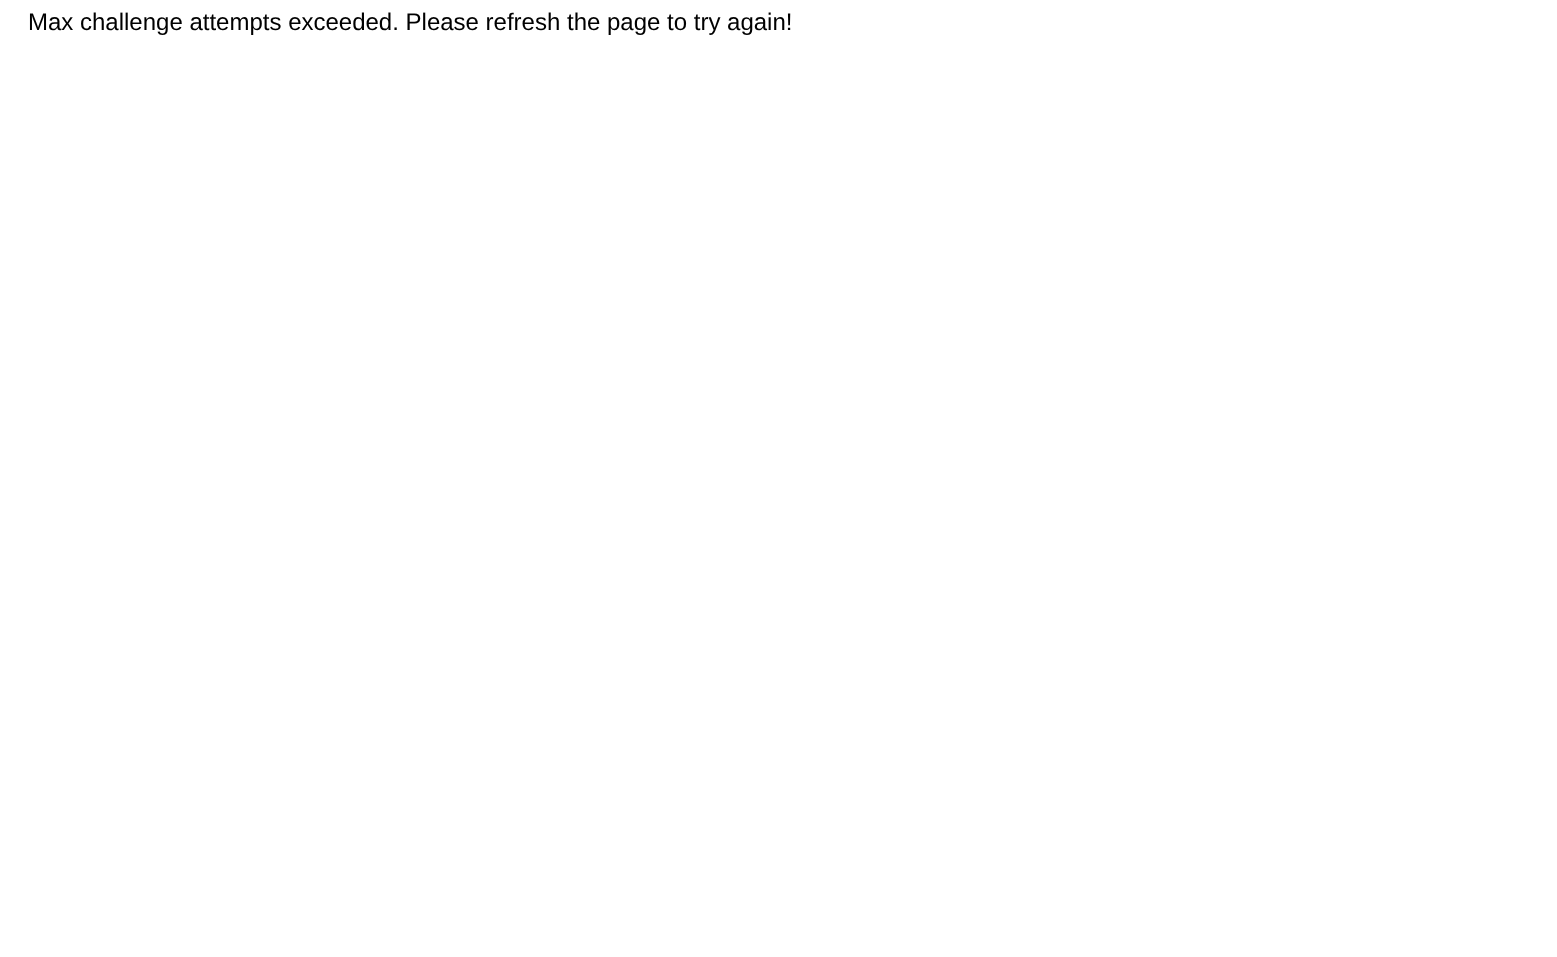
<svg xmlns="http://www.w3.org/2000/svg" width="1557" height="957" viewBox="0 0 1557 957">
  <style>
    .t1 { font: 24px Liberation Sans; fill: #000; }
  </style>
  <rect width="100%" height="100%" fill="#fff"/>
  <text x="28" y="30" class="t1">Max challenge attempts exceeded. Please refresh the page to try again!</text>
</svg>
